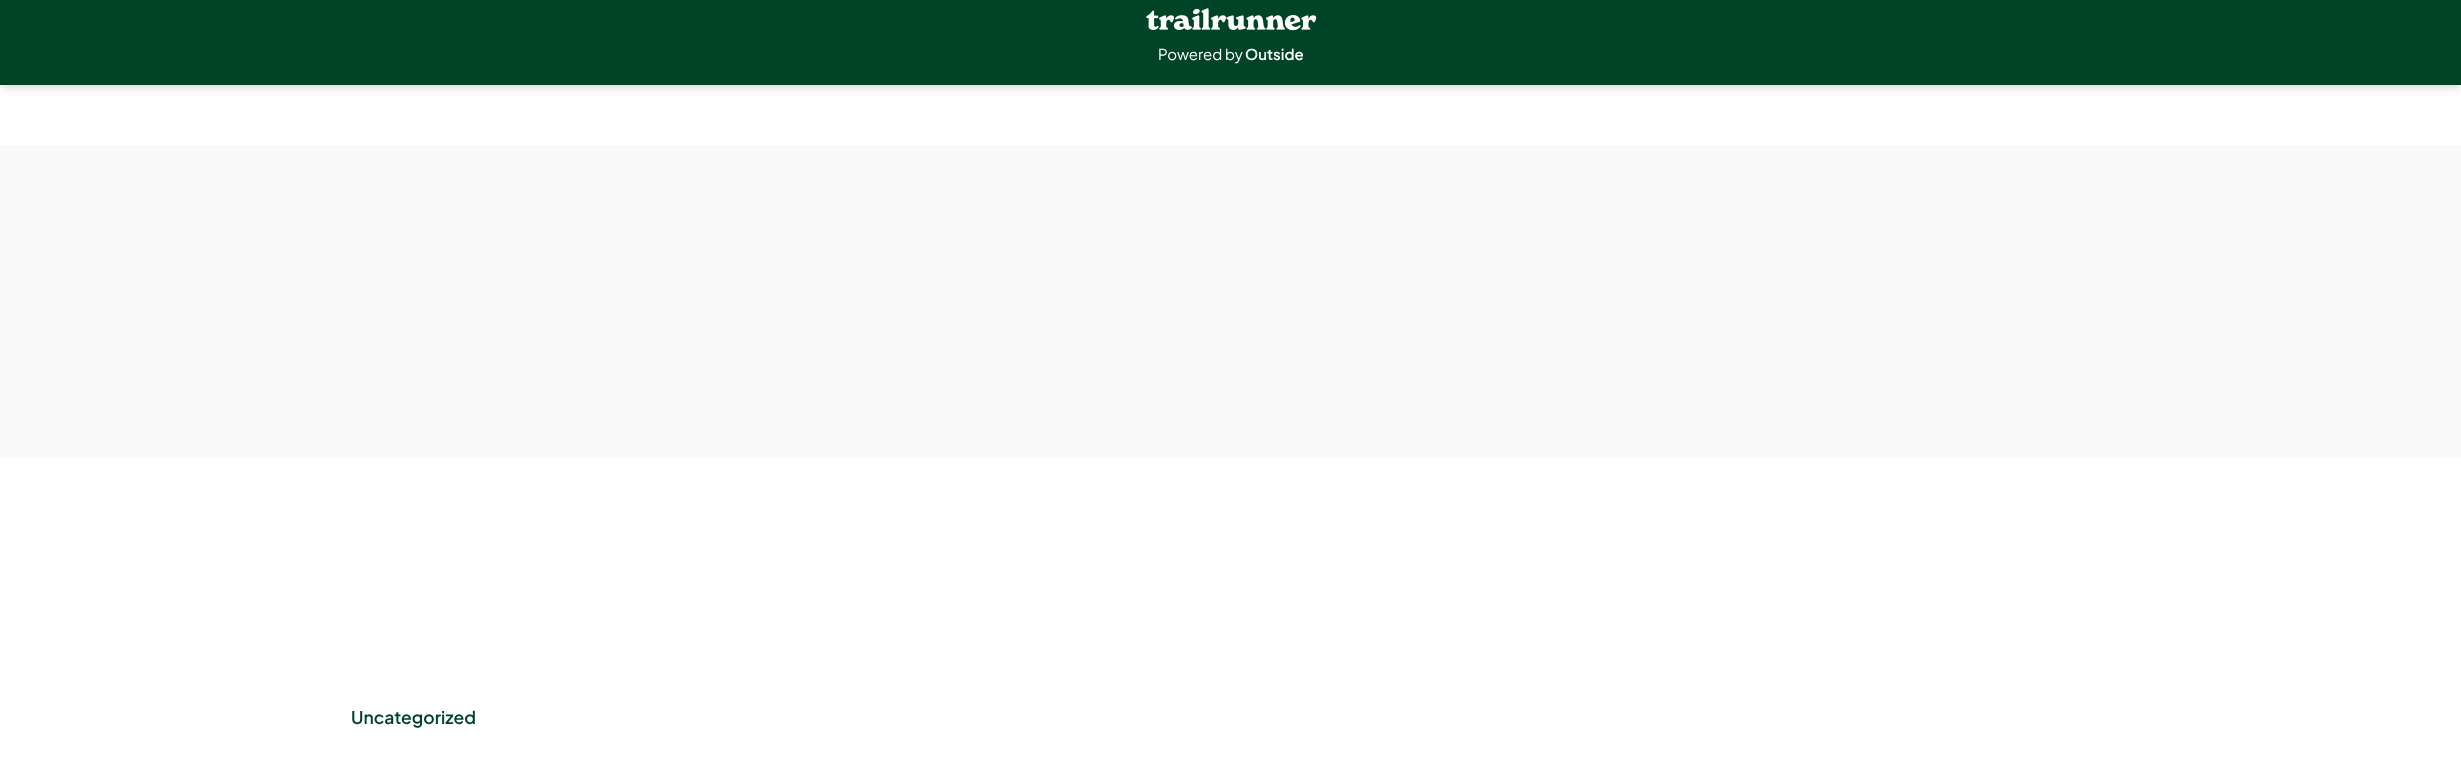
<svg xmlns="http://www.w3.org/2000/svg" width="2461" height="770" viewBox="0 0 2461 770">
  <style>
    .t1 { font: 15px Plus Jakarta Sans; fill: #fff; }
    .t2 { font: 600 15px Plus Jakarta Sans; fill: #fff; }
    .t3 { font: 600 17.5px Plus Jakarta Sans; fill: #004427; }
  </style>
  <rect width="100%" height="100%" fill="#fff"/>
  <rect x="3" y="5" width="2456" height="80" fill="#0000001a" filter="blur(2.5px)"/>
  <rect x="1" y="6" width="2459" height="83" fill="#0000001a" filter="blur(4px)"/>
  <rect x="0" y="0" width="2461" height="85" fill="#004427"/>
  <image x="1146" y="8" width="171" height="23" href="images/1.png"/>
  <text x="1158" y="60" class="t1">Powered by</text>
  <text x="1245" y="60" class="t2">Outside</text>
  <rect x="0" y="145" width="2461" height="313" fill="#f9f9f9"/>
  <text x="351" y="724" class="t3">Uncategorized</text>
</svg>
